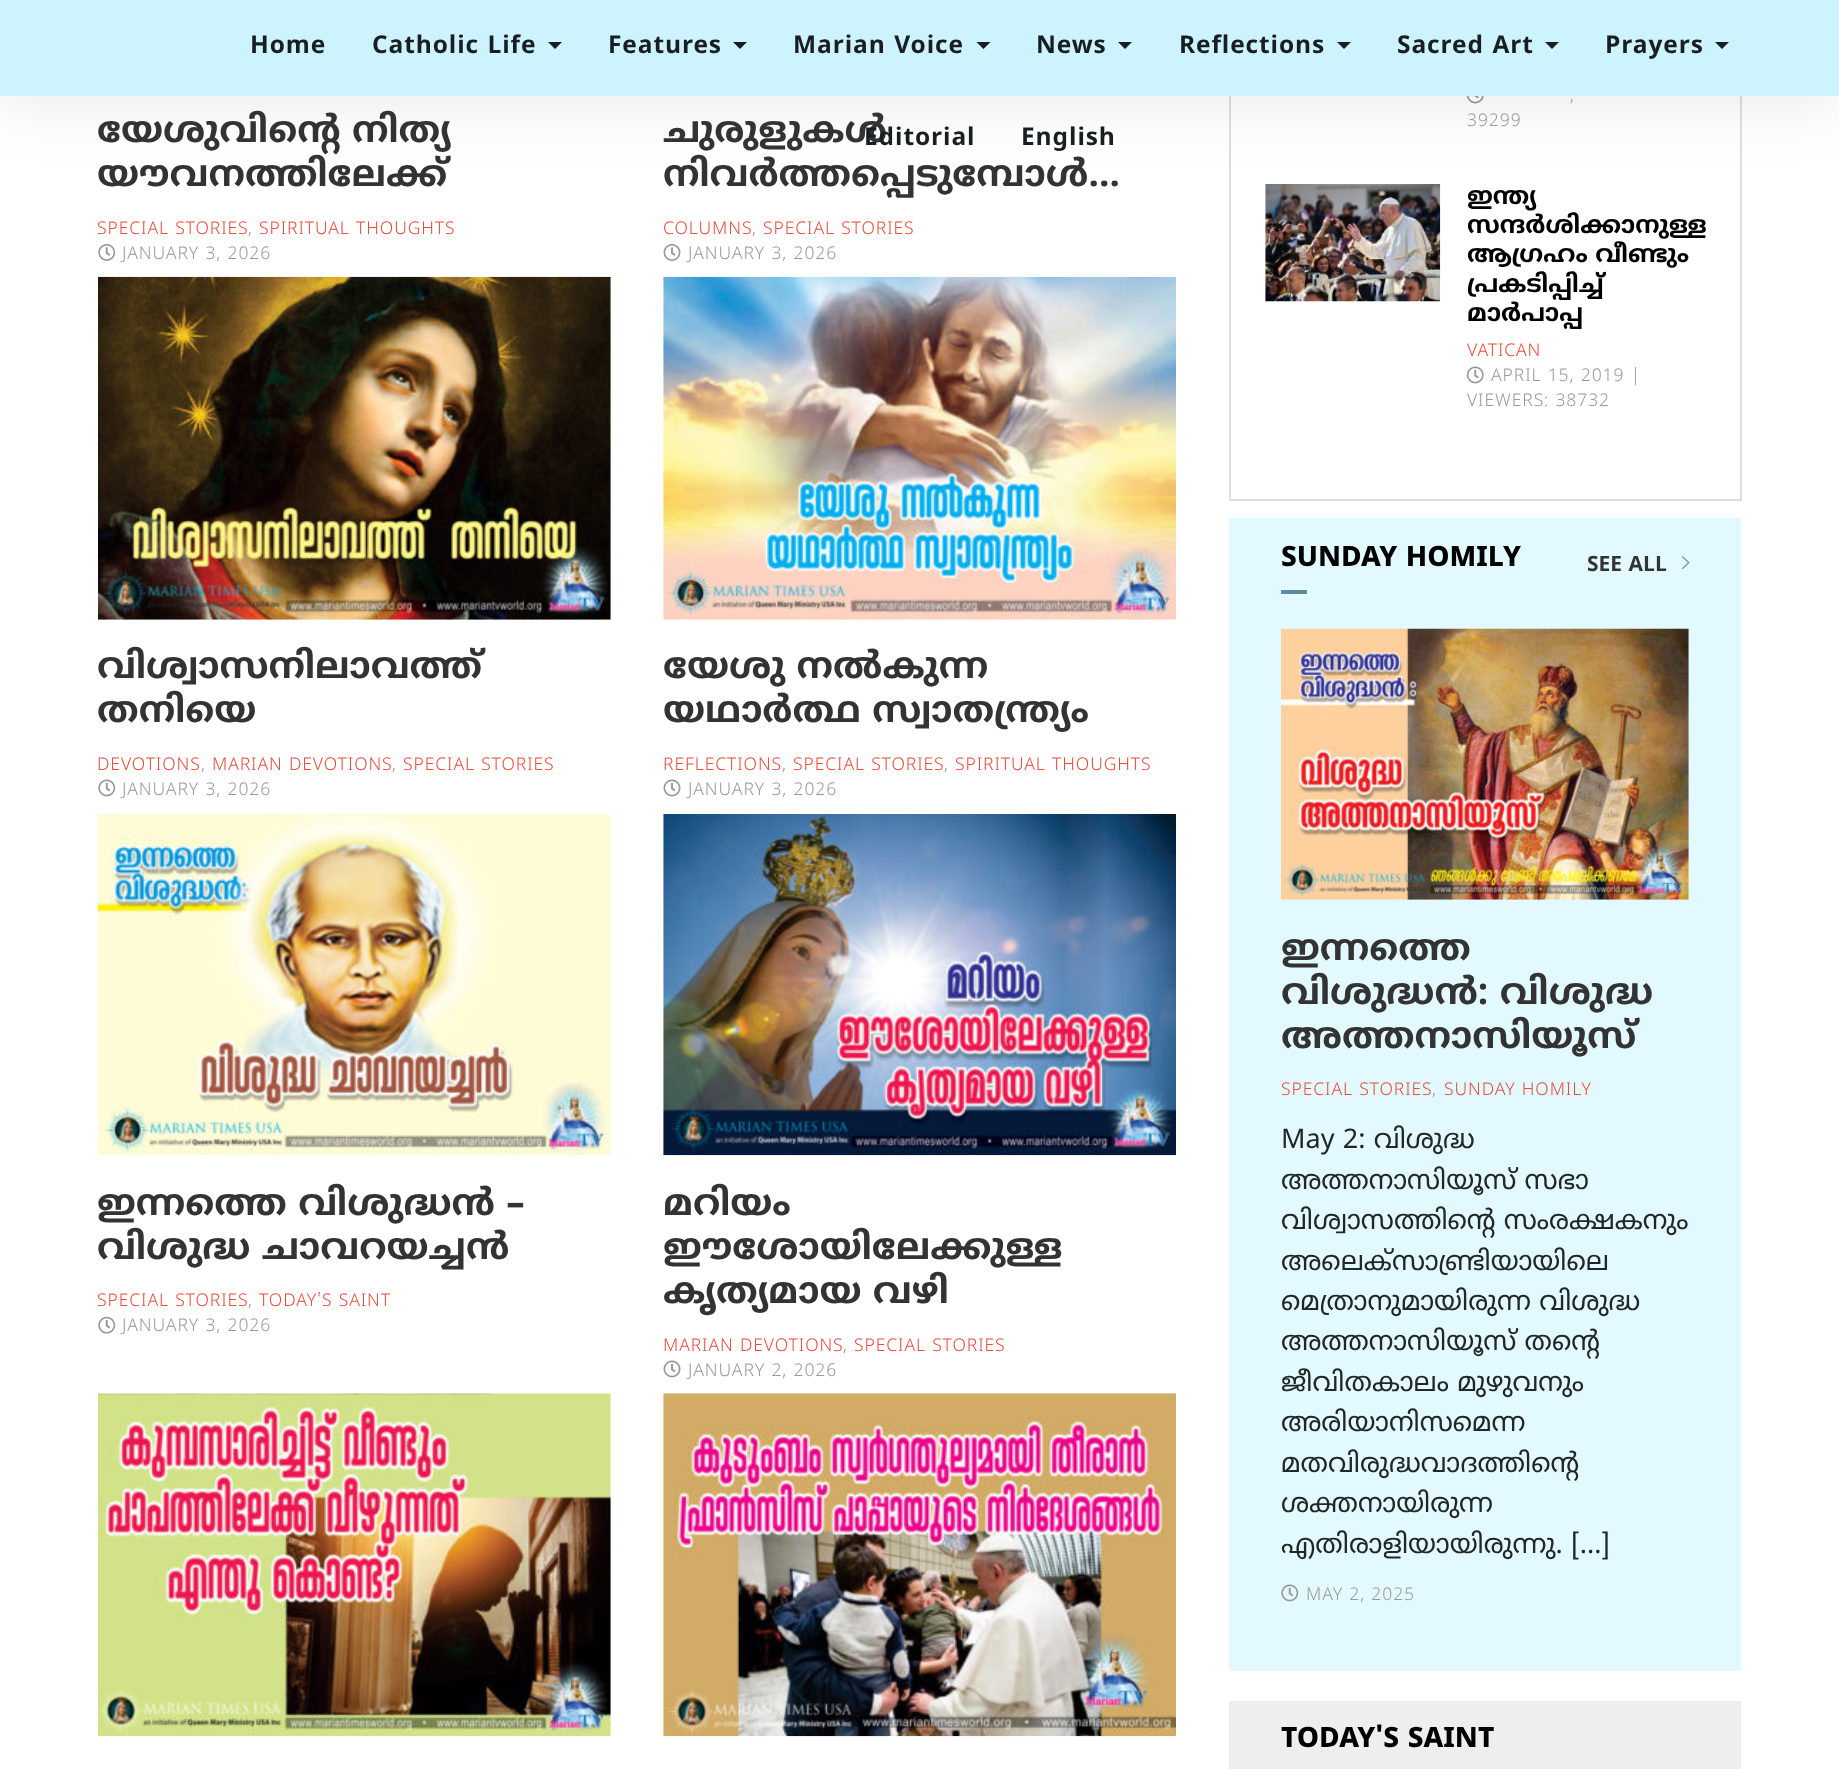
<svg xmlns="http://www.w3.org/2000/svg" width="1839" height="1769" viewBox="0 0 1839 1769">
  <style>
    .t1 { font: bold 24.5px Noto Sans Malayalam; letter-spacing: 0.9px; fill: #191e21; }
    .t2 { font: bold 36.75px Noto Sans Malayalam; fill: #333; }
    .t3 { font: 300 17.5px Noto Sans Malayalam; letter-spacing: 0.9px; fill: #e74c3c; }
    .t4 { font: 300 17.5px Noto Sans Malayalam; letter-spacing: 0.9px; fill: #999; }
    .t5 { font: bold 24.5px Noto Sans Malayalam; fill: #000; }
    .t6 { font: 800 28px Noto Sans Malayalam; fill: #000; }
    .t7 { font: bold 21px Noto Sans Malayalam; fill: #333; }
    .t8 { font: 27px Noto Sans Malayalam; fill: #222626; }
  </style>
  <rect width="100%" height="100%" fill="#fff"/>
  <rect x="1740" y="96" width="2" height="405" fill="#ddd"/>
  <rect x="1229" y="499" width="512" height="2" fill="#ddd"/>
  <rect x="1229" y="96" width="2" height="405" fill="#ddd"/>
  <image x="1466" y="96" width="18" height="8" href="images/12.png"/>
  <image x="1265" y="184" width="176" height="118" href="images/13.png"/>
  <rect x="0" y="0" width="1839" height="96" fill="#0000001a" filter="blur(35px)"/>
  <rect x="0" y="0" width="1839" height="96" fill="#cdf3ff"/>
  <text x="250" y="53" class="t1">Home</text>
  <text x="372" y="53" class="t1">Catholic Life</text>
  <path d="M548 42H562L555 49Z" fill="#191e21"/>
  <text x="608" y="53" class="t1">Features</text>
  <path d="M733 42H747L740 49Z" fill="#191e21"/>
  <text x="793" y="53" class="t1">Marian Voice</text>
  <path d="M976.5 42H990.5L983.5 49Z" fill="#191e21"/>
  <text x="1036" y="53" class="t1">News</text>
  <path d="M1118 42H1132L1125 49Z" fill="#191e21"/>
  <text x="1179" y="53" class="t1">Reflections</text>
  <path d="M1337 42H1351L1344 49Z" fill="#191e21"/>
  <text x="1397" y="53" class="t1">Sacred Art</text>
  <path d="M1545 42H1559L1552 49Z" fill="#191e21"/>
  <text x="1605" y="53" class="t1">Prayers</text>
  <path d="M1715 42H1729L1722 49Z" fill="#191e21"/>
  <text x="663" y="142" class="t2">ചുരുളുകള്‍</text>
  <text x="864" y="145" class="t1">Editorial</text>
  <text x="1021" y="145" class="t1">English</text>
  <text x="97" y="142" class="t2">യേശുവിന്റെ നിത്യ</text>
  <text x="97" y="186" class="t2">യൗവനത്തിലേക്ക്‌</text>
  <text x="97" y="234" class="t3">SPECIAL STORIES</text>
  <text x="248" y="234" class="t4">,</text>
  <text x="259" y="234" class="t3">SPIRITUAL THOUGHTS</text>
  <image x="98" y="244" width="18" height="17" href="images/1.png"/>
  <text x="122" y="259" class="t4">JANUARY 3, 2026</text>
  <text x="663" y="186" class="t2">നിവര്‍ത്തപ്പെടുമ്പോള്‍…</text>
  <text x="663" y="234" class="t3">COLUMNS</text>
  <text x="752" y="234" class="t4">,</text>
  <text x="763" y="234" class="t3">SPECIAL STORIES</text>
  <image x="663" y="244" width="18" height="17" href="images/2.png"/>
  <text x="688" y="259" class="t4">JANUARY 3, 2026</text>
  <image x="98" y="276" width="513" height="344" href="images/3.png"/>
  <text x="97" y="678" class="t2">വിശ്വാസനിലാവത്ത്</text>
  <text x="97" y="722" class="t2">തനിയെ</text>
  <text x="97" y="770" class="t3">DEVOTIONS</text>
  <text x="201" y="770" class="t4">,</text>
  <text x="212" y="770" class="t3">MARIAN DEVOTIONS</text>
  <text x="392" y="770" class="t4">,</text>
  <text x="403" y="770" class="t3">SPECIAL STORIES</text>
  <image x="98" y="779" width="18" height="18" href="images/4.png"/>
  <text x="122" y="795" class="t4">JANUARY 3, 2026</text>
  <image x="663" y="276" width="513" height="344" href="images/5.png"/>
  <text x="663" y="678" class="t2">യേശു നല്‍കുന്ന</text>
  <text x="663" y="722" class="t2">യഥാര്‍ത്ഥ സ്വാതന്ത്ര്യം</text>
  <text x="663" y="770" class="t3">REFLECTIONS</text>
  <text x="782" y="770" class="t4">,</text>
  <text x="793" y="770" class="t3">SPECIAL STORIES</text>
  <text x="944" y="770" class="t4">,</text>
  <text x="955" y="770" class="t3">SPIRITUAL THOUGHTS</text>
  <image x="663" y="779" width="18" height="18" href="images/6.png"/>
  <text x="688" y="795" class="t4">JANUARY 3, 2026</text>
  <image x="98" y="814" width="513" height="341" href="images/7.png"/>
  <text x="97" y="1215" class="t2">ഇന്നത്തെ വിശുദ്ധന്‍ –</text>
  <text x="97" y="1259" class="t2">വിശുദ്ധ ചാവറയച്ചൻ</text>
  <text x="97" y="1306" class="t3">SPECIAL STORIES</text>
  <text x="248" y="1306" class="t4">,</text>
  <text x="259" y="1306" class="t3">TODAY'S SAINT</text>
  <image x="98" y="1316" width="18" height="18" href="images/8.png"/>
  <text x="122" y="1331" class="t4">JANUARY 3, 2026</text>
  <image x="663" y="814" width="513" height="342" href="images/9.png"/>
  <text x="663" y="1215" class="t2">മറിയം</text>
  <text x="663" y="1259" class="t2">ഈശോയിലേക്കുള്ള</text>
  <text x="663" y="1303" class="t2">കൃത്യമായ വഴി</text>
  <text x="663" y="1351" class="t3">MARIAN DEVOTIONS</text>
  <text x="843" y="1351" class="t4">,</text>
  <text x="854" y="1351" class="t3">SPECIAL STORIES</text>
  <image x="663" y="1360" width="18" height="18" href="images/6.png"/>
  <text x="688" y="1376" class="t4">JANUARY 2, 2026</text>
  <image x="98" y="1393" width="513" height="344" href="images/10.png"/>
  <image x="663" y="1393" width="513" height="344" href="images/11.png"/>
  <text x="1570" y="101" class="t4">,</text>
  <text x="1467" y="126" class="t4">39299</text>
  <text x="1467" y="204" class="t5">ഇന്ത്യ</text>
  <text x="1467" y="233" class="t5">സന്ദര്‍ശിക്കാനുള്ള</text>
  <text x="1467" y="262" class="t5">ആഗ്രഹം വീണ്ടും</text>
  <text x="1467" y="292" class="t5">പ്രകടിപ്പിച്ച്</text>
  <text x="1467" y="321" class="t5">മാര്‍പാപ്പ</text>
  <text x="1467" y="356" class="t3">VATICAN</text>
  <image x="1466" y="366" width="18" height="18" href="images/14.png"/>
  <text x="1491" y="381" class="t4">APRIL 15, 2019 |</text>
  <text x="1467" y="406" class="t4">VIEWERS: 38732</text>
  <rect x="1229" y="518" width="512" height="1153" fill="#e2faff"/>
  <text x="1281" y="566" class="t6">SUNDAY HOMILY</text>
  <text x="1587" y="571" class="t7">SEE ALL</text>
  <image x="1681" y="556" width="9" height="14" href="images/15.png"/>
  <rect x="1281" y="590" width="26" height="4" fill="#5b8c9f"/>
  <image x="1281" y="628" width="408" height="272" href="images/16.png"/>
  <text x="1281" y="960" class="t2">ഇന്നത്തെ</text>
  <text x="1281" y="1004" class="t2">വിശുദ്ധന്‍: വിശുദ്ധ</text>
  <text x="1281" y="1048" class="t2">അത്തനാസിയൂസ്</text>
  <text x="1281" y="1095" class="t3">SPECIAL STORIES</text>
  <text x="1432" y="1095" class="t4">,</text>
  <text x="1444" y="1095" class="t3">SUNDAY HOMILY</text>
  <text x="1281" y="1148" class="t8">May 2: വിശുദ്ധ</text>
  <text x="1281" y="1189" class="t8">അത്തനാസിയൂസ് സഭാ</text>
  <text x="1281" y="1229" class="t8">വിശ്വാസത്തിന്റെ സംരക്ഷകനും</text>
  <text x="1281" y="1270" class="t8">അലെക്സാണ്ട്രിയായിലെ</text>
  <text x="1281" y="1310" class="t8">മെത്രാനുമായിരുന്ന വിശുദ്ധ</text>
  <text x="1281" y="1350" class="t8">അത്തനാസിയൂസ് തന്റെ</text>
  <text x="1281" y="1391" class="t8">ജീവിതകാലം മുഴുവനും</text>
  <text x="1281" y="1431" class="t8">അരിയാനിസമെന്ന</text>
  <text x="1281" y="1472" class="t8">മതവിരുദ്ധവാദത്തിന്റെ</text>
  <text x="1281" y="1512" class="t8">ശക്തനായിരുന്ന</text>
  <text x="1281" y="1553" class="t8">എതിരാളിയായിരുന്നു. […]</text>
  <image x="1281" y="1584" width="18" height="18" href="images/17.png"/>
  <text x="1306" y="1600" class="t4">MAY 2, 2025</text>
  <rect x="1229" y="1701" width="512" height="68" fill="#eee"/>
  <text x="1281" y="1747" class="t6">TODAY'S SAINT</text>
</svg>
